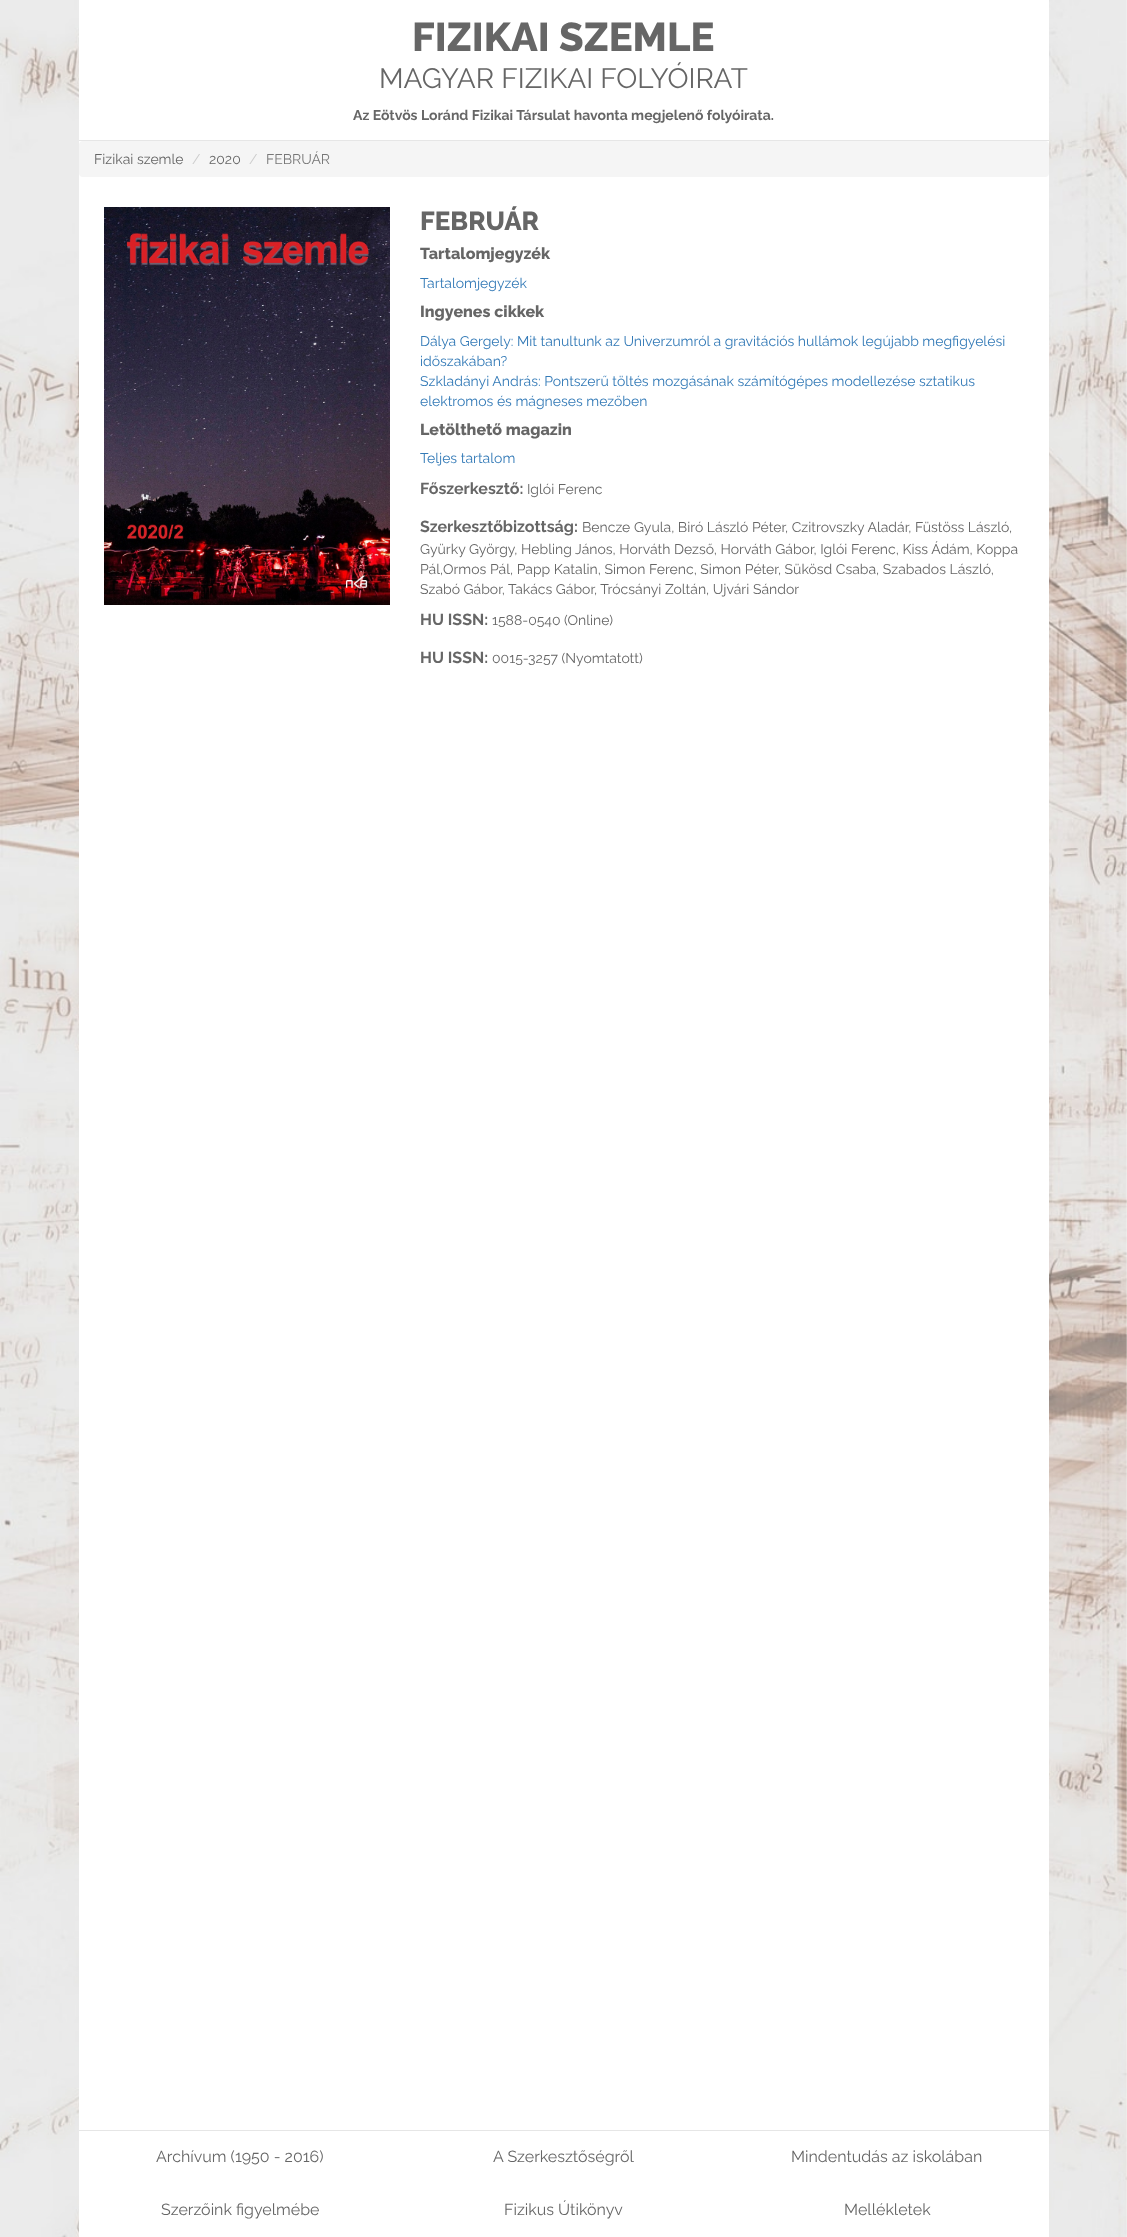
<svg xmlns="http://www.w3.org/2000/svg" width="1127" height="2237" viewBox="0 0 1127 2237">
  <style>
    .t1 { font: 800 40px Raleway; fill: #666; }
    .t2 { font: 28px Raleway; fill: #666; }
    .t3 { font: bold 14px Raleway; fill: #666; }
    .t4 { font: 14px Raleway; fill: #666; }
    .t5 { font: 14px Raleway; fill: #ccc; }
    .t6 { font: 14px Raleway; fill: #777; }
    .t7 { font: 800 26px Raleway; fill: #666; }
    .t8 { font: 800 16px Raleway; fill: #666; }
    .t9 { font: 14px Raleway; fill: #337ab7; }
    .t10 { font: bold 16px Raleway; fill: #666; }
    .t11 { font: 16px Raleway; fill: #666; }
  </style>
  <rect width="100%" height="100%" fill="#fff"/>
  <image x="0" y="0" width="1127" height="2237" href="images/1.png"/>
  <rect x="79" y="0" width="970" height="2237" fill="#fff"/>
  <rect x="79" y="140" width="970" height="1" fill="#e6e6e6"/>
  <text x="412" y="51" class="t1">FIZIKAI SZEMLE</text>
  <text x="379" y="88" class="t2">MAGYAR FIZIKAI FOLYÓIRAT</text>
  <text x="353" y="120" class="t3">Az Eötvös Loránd Fizikai Társulat havonta megjelenő folyóirata.</text>
  <rect x="79" y="141" width="970" height="36" rx="4" fill="#f5f5f5"/>
  <text x="94" y="164" class="t4">Fizikai szemle</text>
  <text x="192" y="164" class="t5">/</text>
  <text x="209" y="164" class="t4">2020</text>
  <text x="249" y="164" class="t5">/</text>
  <text x="266" y="164" class="t6">FEBRUÁR</text>
  <image x="104" y="207" width="286" height="398" href="images/2.png"/>
  <text x="420" y="230" class="t7">FEBRUÁR</text>
  <text x="420" y="259" class="t8">Tartalomjegyzék</text>
  <text x="420" y="288" class="t9">Tartalomjegyzék</text>
  <text x="420" y="317" class="t8">Ingyenes cikkek</text>
  <text x="420" y="346" class="t9">Dálya Gergely: Mit tanultunk az Univerzumról a gravitációs hullámok legújabb megfigyelési</text>
  <text x="420" y="366" class="t9">időszakában?</text>
  <text x="420" y="386" class="t9">Szkladányi András: Pontszerű töltés mozgásának számítógépes modellezése sztatikus</text>
  <text x="420" y="406" class="t9">elektromos és mágneses mezőben</text>
  <text x="420" y="435" class="t8">Letölthető magazin</text>
  <text x="420" y="463" class="t9">Teljes tartalom</text>
  <text x="420" y="494" class="t10">Főszerkesztő:</text>
  <text x="527" y="494" class="t4">Iglói Ferenc</text>
  <text x="420" y="532" class="t10">Szerkesztőbizottság:</text>
  <text x="582" y="532" class="t4">Bencze Gyula, Biró László Péter, Czitrovszky Aladár, Füstöss László,</text>
  <text x="420" y="554" class="t4">Gyürky György, Hebling János, Horváth Dezső, Horváth Gábor, Iglói Ferenc, Kiss Ádám, Koppa</text>
  <text x="420" y="574" class="t4">Pál,Ormos Pál, Papp Katalin, Simon Ferenc, Simon Péter, Sükösd Csaba, Szabados László,</text>
  <text x="420" y="594" class="t4">Szabó Gábor, Takács Gábor, Trócsányi Zoltán, Ujvári Sándor</text>
  <text x="420" y="625" class="t10">HU ISSN:</text>
  <text x="492" y="625" class="t4">1588-0540 (Online)</text>
  <text x="420" y="663" class="t10">HU ISSN:</text>
  <text x="492" y="663" class="t4">0015-3257 (Nyomtatott)</text>
  <rect x="79" y="2130" width="970" height="1" fill="#e6e6e6"/>
  <text x="156" y="2162" class="t11">Archívum (1950 - 2016)</text>
  <text x="493" y="2162" class="t11">A Szerkesztőségről</text>
  <text x="791" y="2162" class="t11">Mindentudás az iskolában</text>
  <text x="161" y="2215" class="t11">Szerzőink figyelmébe</text>
  <text x="504" y="2215" class="t11">Fizikus Útikönyv</text>
  <text x="844" y="2215" class="t11">Mellékletek</text>
</svg>
